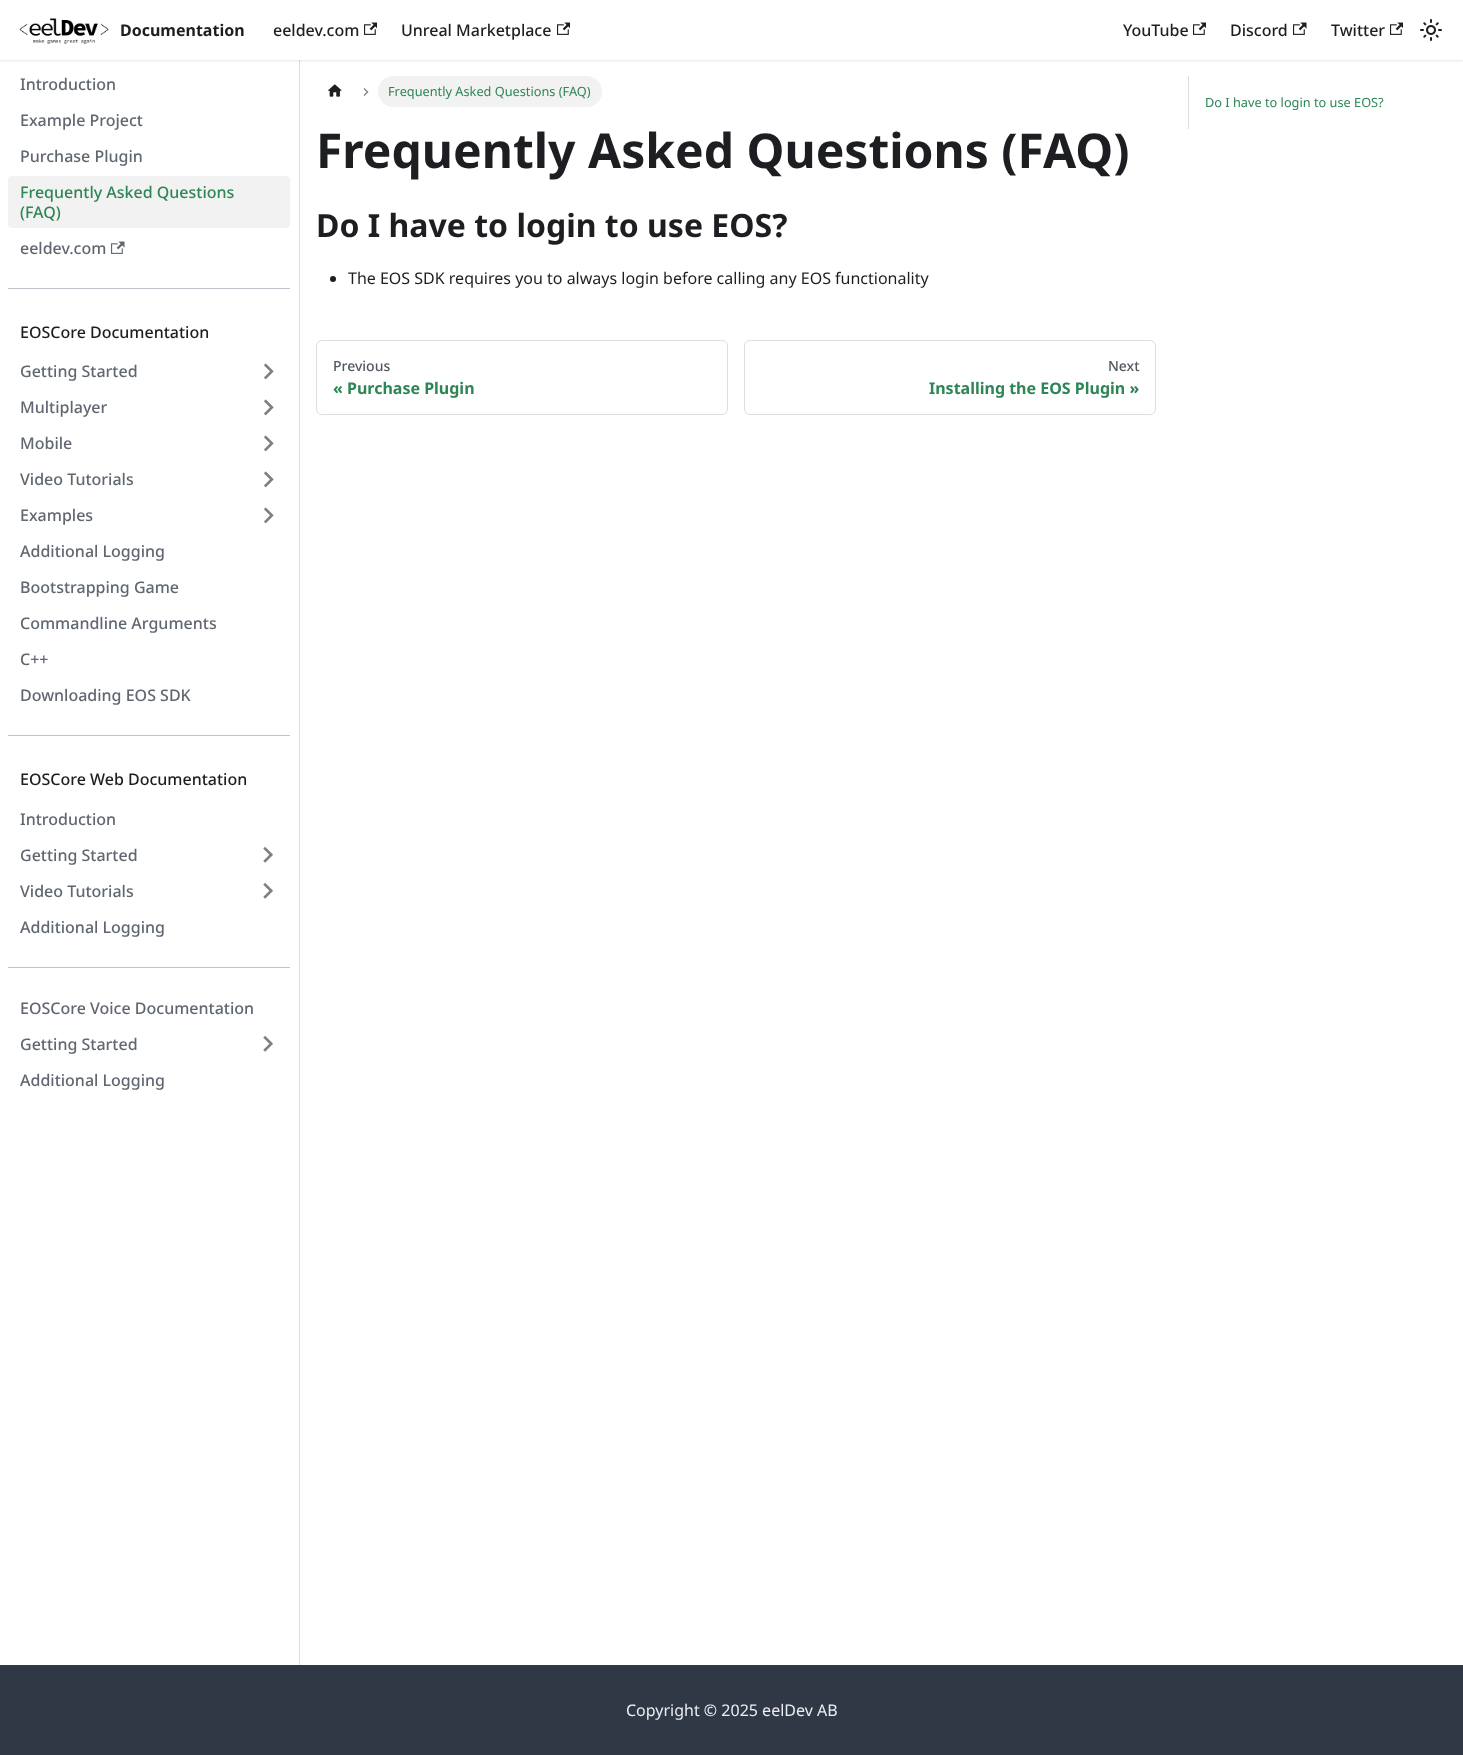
<svg xmlns="http://www.w3.org/2000/svg" width="1463" height="1755" viewBox="0 0 1463 1755">
  <style>
    .t1 { font: bold 16px Noto Sans; fill: #1c1e21; }
    .t2 { font: 500 16px Noto Sans; fill: #1c1e21; }
    .t3 { font: 500 16px Noto Sans; fill: #606770; }
    .t4 { font: 500 16px Noto Sans; fill: #2e8555; }
    .t5 { font: 12.75px Noto Sans; fill: #2e8555; }
    .t6 { font: bold 48px Noto Sans; fill: #1c1e21; }
    .t7 { font: bold 32px Noto Sans; fill: #1c1e21; }
    .t8 { font: 16px Noto Sans; fill: #1c1e21; }
    .t9 { font: 500 14px Noto Sans; fill: #525860; }
    .t10 { font: bold 16px Noto Sans; fill: #2e8555; }
    .t11 { font: 16px Noto Sans; fill: #ebedf0; }
  </style>
  <rect width="100%" height="100%" fill="#fff"/>
  <rect x="299" y="60" width="1" height="1605" fill="#dadde1"/>
  <rect x="0" y="1" width="1463" height="60" fill="#0000001a" filter="blur(1px)"/>
  <rect x="0" y="0" width="1463" height="60" fill="#fff"/>
  <image x="19" y="18" width="90" height="26" href="images/1.png"/>
  <text x="120" y="36" class="t1">Documentation</text>
  <text x="273" y="36" class="t2">eeldev.com</text>
  <image x="364" y="22" width="13" height="13" href="images/2.png"/>
  <text x="401" y="36" class="t2">Unreal Marketplace</text>
  <image x="557" y="22" width="13" height="13" href="images/2.png"/>
  <text x="1123" y="36" class="t2">YouTube</text>
  <image x="1193" y="22" width="13" height="13" href="images/2.png"/>
  <text x="1230" y="36" class="t2">Discord</text>
  <image x="1293" y="22" width="14" height="13" href="images/3.png"/>
  <text x="1331" y="36" class="t2">Twitter</text>
  <image x="1390" y="22" width="13" height="13" href="images/2.png"/>
  <image x="1420" y="19" width="22" height="22" href="images/4.png"/>
  <text x="20" y="90" class="t3">Introduction</text>
  <text x="20" y="126" class="t3">Example Project</text>
  <text x="20" y="162" class="t3">Purchase Plugin</text>
  <rect x="8" y="176" width="282" height="52" rx="4" fill="#f2f2f2"/>
  <text x="20" y="198" class="t4">Frequently Asked Questions</text>
  <text x="20" y="218" class="t4">(FAQ)</text>
  <text x="20" y="254" class="t3">eeldev.com</text>
  <image x="111" y="241" width="14" height="13" href="images/5.png"/>
  <rect x="8" y="288" width="282" height="1" fill="#bec3c9"/>
  <text x="20" y="338" class="t2">EOSCore Documentation</text>
  <text x="20" y="377" class="t3">Getting Started</text>
  <image x="264" y="363" width="10" height="17" href="images/6.png"/>
  <text x="20" y="413" class="t3">Multiplayer</text>
  <image x="264" y="399" width="10" height="17" href="images/6.png"/>
  <text x="20" y="449" class="t3">Mobile</text>
  <image x="264" y="435" width="10" height="17" href="images/6.png"/>
  <text x="20" y="485" class="t3">Video Tutorials</text>
  <image x="264" y="471" width="10" height="17" href="images/6.png"/>
  <text x="20" y="521" class="t3">Examples</text>
  <image x="264" y="507" width="10" height="17" href="images/6.png"/>
  <text x="20" y="557" class="t3">Additional Logging</text>
  <text x="20" y="593" class="t3">Bootstrapping Game</text>
  <text x="20" y="629" class="t3">Commandline Arguments</text>
  <text x="20" y="665" class="t3">C++</text>
  <text x="20" y="701" class="t3">Downloading EOS SDK</text>
  <rect x="8" y="735" width="282" height="1" fill="#bec3c9"/>
  <text x="20" y="785" class="t2">EOSCore Web Documentation</text>
  <text x="20" y="825" class="t3">Introduction</text>
  <text x="20" y="861" class="t3">Getting Started</text>
  <image x="263" y="846" width="10" height="17" href="images/7.png"/>
  <text x="20" y="897" class="t3">Video Tutorials</text>
  <image x="263" y="882" width="10" height="17" href="images/7.png"/>
  <text x="20" y="933" class="t3">Additional Logging</text>
  <rect x="8" y="967" width="282" height="1" fill="#bec3c9"/>
  <text x="20" y="1014" class="t3">EOSCore Voice Documentation</text>
  <text x="20" y="1050" class="t3">Getting Started</text>
  <image x="263" y="1035" width="10" height="17" href="images/7.png"/>
  <text x="20" y="1086" class="t3">Additional Logging</text>
  <image x="328" y="84" width="14" height="13" href="images/8.png"/>
  <image x="363" y="88" width="6" height="8" href="images/9.png"/>
  <rect x="378" y="76" width="224" height="31" rx="15.5" fill="#f2f2f2"/>
  <text x="388" y="96" class="t5">Frequently Asked Questions (FAQ)</text>
  <text x="316" y="168" class="t6">Frequently Asked Questions (FAQ)</text>
  <text x="316" y="237" class="t7">Do I have to login to use EOS?</text>
  <circle cx="333" cy="279" r="3" fill="#1c1e21"/>
  <text x="348" y="284" class="t8">The EOS SDK requires you to always login before calling any EOS functionality</text>
  <rect x="316.5" y="340.5" width="411" height="74" rx="5.5" fill="none" stroke="#dadde1"/>
  <text x="333" y="371" class="t9">Previous</text>
  <text x="333" y="394" class="t10">« Purchase Plugin</text>
  <rect x="744.5" y="340.5" width="411" height="74" rx="5.5" fill="none" stroke="#dadde1"/>
  <text x="1108" y="371" class="t9">Next</text>
  <text x="929" y="394" class="t10">Installing the EOS Plugin »</text>
  <rect x="1188" y="76" width="1" height="53" fill="#dadde1"/>
  <text x="1205" y="107" class="t5">Do I have to login to use EOS?</text>
  <rect x="0" y="1665" width="1463" height="90" fill="#303846"/>
  <text x="626" y="1716" class="t11">Copyright © 2025 eelDev AB</text>
</svg>
